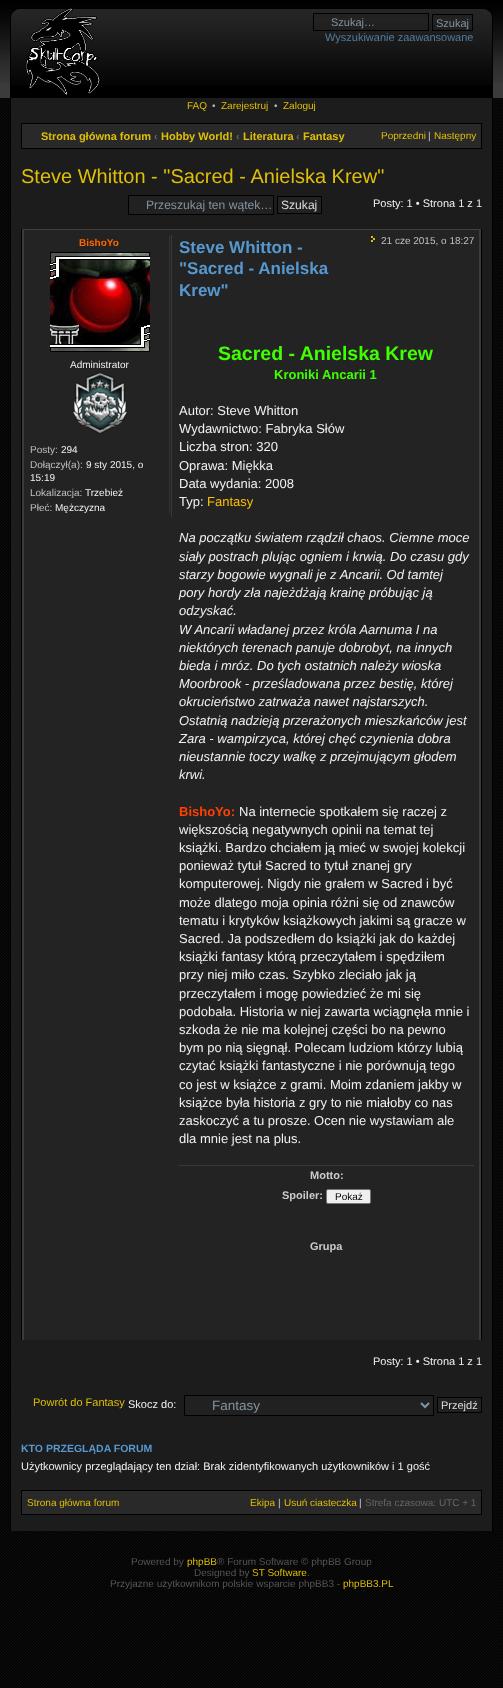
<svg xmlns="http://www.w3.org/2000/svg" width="503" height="1688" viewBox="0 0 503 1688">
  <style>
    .t1 { font: 11px Liberation Sans; fill: #8093a2; }
    .t2 { font: 11px Liberation Sans; fill: #527c9f; }
    .t3 { font: 10px Liberation Sans; fill: #e0bf07; }
    .t4 { font: 10px Liberation Sans; fill: #b0b0b0; }
    .t5 { font: bold 11px Liberation Sans; fill: #e0bf07; }
    .t6 { font: bold 11px Liberation Sans; fill: #666; }
    .t7 { font: 10px Liberation Sans; fill: #ccc; }
    .t8 { font: 20px Liberation Sans; fill: #e0bf07; }
    .t9 { font: 12.1px Liberation Sans; fill: #8093a2; }
    .t10 { font: 12.1px Liberation Sans; fill: #ddd; }
    .t11 { font: 11px Liberation Sans; fill: #f0f0f0; }
    .t12 { font: bold 10px Liberation Sans; fill: #f60; }
    .t13 { font: 10px Liberation Sans; fill: #f0f0f0; }
    .t14 { font: 10px Liberation Sans; fill: #c0c0c0; }
    .t15 { font: bold 17px Liberation Sans; fill: #5698cf; }
    .t16 { font: bold 19.5px Liberation Sans; fill: #40ff00; }
    .t17 { font: bold 13px Liberation Sans; fill: #40ff00; }
    .t18 { font: 13px Liberation Sans; fill: #f0f0f0; }
    .t19 { font: 13px Liberation Sans; fill: #ffbf00; }
    .t20 { font: italic 13px Liberation Sans; fill: #f0f0f0; }
    .t21 { font: bold 13px Liberation Sans; fill: #ff4000; }
    .t22 { font: bold 11px Liberation Sans; fill: #ccc; }
    .t23 { font: 10px Liberation Sans; fill: #000; }
    .t24 { font: 11px Liberation Sans; fill: #e0bf07; }
    .t25 { font: 13.5px Liberation Sans; fill: #8093a2; }
    .t26 { font: 11px Liberation Sans; fill: #ddd; }
    .t27 { font: bold 10.5px Liberation Sans; fill: #5698cf; }
    .t28 { font: 10px Liberation Sans; fill: #666; }
    .t29 { font: 10px Liberation Sans; fill: #555; }
  </style>
  <rect width="100%" height="100%" fill="#fff"/>
  <image x="0" y="1594" width="503" height="94" href="images/1.png"/>
  <image x="0" y="98" width="503" height="1496" href="images/2.png"/>
  <rect x="0" y="83" width="503" height="15" fill="#3b3b3b"/>
  <image x="0" y="0" width="503" height="83" href="images/3.png"/>
  <rect x="10" y="8" width="483" height="90" fill="#000"/>
  <image x="11" y="9" width="481" height="76" href="images/4.png"/>
  <image x="10" y="9" width="9" height="76" href="images/5.png"/>
  <image x="484" y="9" width="9" height="76" href="images/6.png"/>
  <image x="26" y="8" width="74" height="87" href="images/7.png"/>
  <rect x="314" y="14" width="114" height="4" fill="#212121"/>
  <rect x="313.5" y="13.5" width="115" height="17" fill="none" stroke="#000"/>
  <text x="331" y="26" class="t1">Szukaj…</text>
  <rect x="433" y="15" width="39" height="3" fill="#212121"/>
  <rect x="432.5" y="14.5" width="40" height="16" fill="none" stroke="#000"/>
  <text x="436" y="27" class="t1">Szukaj</text>
  <text x="325" y="41" class="t2">Wyszukiwanie zaawansowane</text>
  <rect x="11" y="98" width="481" height="1433" fill="#1c1c1c"/>
  <rect x="492" y="98" width="1" height="1433" fill="#000"/>
  <rect x="10" y="98" width="1" height="1433" fill="#000"/>
  <text x="187" y="109" class="t3">FAQ</text>
  <text x="212" y="109" class="t4">•</text>
  <text x="221" y="109" class="t3">Zarejestruj</text>
  <text x="274" y="109" class="t4">•</text>
  <text x="283" y="109" class="t3">Zaloguj</text>
  <rect x="21.5" y="123.5" width="460" height="25" fill="#292929" stroke="#000"/>
  <text x="41" y="140" class="t5">Strona główna forum</text>
  <text x="154" y="140" class="t6">‹</text>
  <text x="161" y="140" class="t5">Hobby World!</text>
  <text x="236" y="140" class="t6">‹</text>
  <text x="243" y="140" class="t5">Literatura</text>
  <text x="296" y="140" class="t6">‹</text>
  <text x="303" y="140" class="t5">Fantasy</text>
  <text x="381" y="139" class="t3">Poprzedni</text>
  <text x="428" y="139" class="t7">|</text>
  <text x="434" y="139" class="t3">Następny</text>
  <text x="21" y="183" class="t8">Steve Whitton - "Sacred - Anielska Krew"</text>
  <rect x="128.5" y="195.5" width="145" height="19" fill="#212121" stroke="#000"/>
  <text x="146" y="209" class="t9">Przeszukaj ten wątek…</text>
  <rect x="277.5" y="196.5" width="44" height="17" fill="#212121" stroke="#000"/>
  <text x="281" y="209" class="t10">Szukaj</text>
  <text x="373" y="207" class="t11">Posty: 1 • Strona 1 z 1</text>
  <rect x="22" y="229" width="459" height="1111" fill="#3b3b3b"/>
  <rect x="481" y="229" width="1" height="1111" fill="#000"/>
  <rect x="21" y="229" width="1" height="1111" fill="#000"/>
  <rect x="24" y="230" width="455" height="1109" fill="#232323"/>
  <rect x="24" y="229" width="455" height="1" fill="#404040"/>
  <rect x="24" y="1339" width="455" height="1" fill="#222"/>
  <rect x="171" y="235" width="1" height="282" fill="#393939"/>
  <rect x="169" y="236" width="1" height="278" fill="#333"/>
  <text x="79" y="246" class="t12">BishoYo</text>
  <image x="50" y="252" width="100" height="100" href="images/8.png"/>
  <text x="70" y="368" class="t13">Administrator</text>
  <image x="73" y="372" width="54" height="62" href="images/9.png"/>
  <text x="30" y="453" class="t14">Posty:</text>
  <text x="61" y="453" class="t13">294</text>
  <text x="30" y="468" class="t14">Dołączył(a):</text>
  <text x="86" y="468" class="t13">9 sty 2015, o</text>
  <text x="30" y="481" class="t13">15:19</text>
  <text x="30" y="496" class="t14">Lokalizacja:</text>
  <text x="85" y="496" class="t13">Trzebież</text>
  <text x="30" y="511" class="t14">Płeć:</text>
  <text x="55" y="511" class="t13">Mężczyzna</text>
  <text x="179" y="253" class="t15">Steve Whitton -</text>
  <text x="179" y="274" class="t15">"Sacred - Anielska</text>
  <text x="179" y="296" class="t15">Krew"</text>
  <image x="371" y="236" width="4" height="6" href="images/10.png"/>
  <text x="381" y="244" class="t14">21 cze 2015, o 18:27</text>
  <text x="218" y="360" class="t16">Sacred - Anielska Krew</text>
  <text x="274" y="379" class="t17">Kroniki Ancarii 1</text>
  <text x="179" y="415" class="t18">Autor: Steve Whitton</text>
  <text x="179" y="433" class="t18">Wydawnictwo: Fabryka Słów</text>
  <text x="179" y="451" class="t18">Liczba stron: 320</text>
  <text x="179" y="470" class="t18">Oprawa: Miękka</text>
  <text x="179" y="488" class="t18">Data wydania: 2008</text>
  <text x="179" y="506" class="t18">Typ:</text>
  <text x="207" y="506" class="t19">Fantasy</text>
  <text x="179" y="542" class="t20">Na początku światem rządził chaos. Ciemne moce</text>
  <text x="179" y="561" class="t20">siały postrach plując ogniem i krwią. Do czasu gdy</text>
  <text x="179" y="579" class="t20">starzy bogowie wygnali je z Ancarii. Od tamtej</text>
  <text x="179" y="597" class="t20">pory hordy zła najeżdżają krainę próbując ją</text>
  <text x="179" y="615" class="t20">odzyskać.</text>
  <text x="179" y="634" class="t20">W Ancarii władanej przez króla Aarnuma I na</text>
  <text x="179" y="652" class="t20">niektórych terenach panuje dobrobyt, na innych</text>
  <text x="179" y="670" class="t20">bieda i mróz. Do tych ostatnich należy wioska</text>
  <text x="179" y="688" class="t20">Moorbrook - prześladowana przez bestię, której</text>
  <text x="179" y="706" class="t20">okrucieństwo zatrważa nawet najstarszych.</text>
  <text x="179" y="725" class="t20">Ostatnią nadzieją przerażonych mieszkańców jest</text>
  <text x="179" y="743" class="t20">Zara - wampirzyca, której chęć czynienia dobra</text>
  <text x="179" y="761" class="t20">nieustannie toczy walkę z przejmującym głodem</text>
  <text x="179" y="779" class="t20">krwi.</text>
  <text x="179" y="816" class="t21">BishoYo:</text>
  <text x="239" y="816" class="t18">Na internecie spotkałem się raczej z</text>
  <text x="179" y="834" class="t18">większością negatywnych opinii na temat tej</text>
  <text x="179" y="852" class="t18">książki. Bardzo chciałem ją mieć w swojej kolekcji</text>
  <text x="179" y="870" class="t18">ponieważ tytuł Sacred to tytuł znanej gry</text>
  <text x="179" y="888" class="t18">komputerowej. Nigdy nie grałem w Sacred i być</text>
  <text x="179" y="907" class="t18">może dlatego moja opinia różni się od znawców</text>
  <text x="179" y="925" class="t18">tematu i krytyków książkowych jakimi są gracze w</text>
  <text x="179" y="943" class="t18">Sacred. Ja podszedłem do książki jak do każdej</text>
  <text x="179" y="961" class="t18">książki fantasy którą przeczytałem i spędziłem</text>
  <text x="179" y="979" class="t18">przy niej miło czas. Szybko zleciało jak ją</text>
  <text x="179" y="998" class="t18">przeczytałem i mogę powiedzieć że mi się</text>
  <text x="179" y="1016" class="t18">podobała. Historia w niej zawarta wciągnęła mnie i</text>
  <text x="179" y="1034" class="t18">szkoda że nie ma kolejnej części bo na pewno</text>
  <text x="179" y="1052" class="t18">bym po nią sięgnął. Polecam ludziom którzy lubią</text>
  <text x="179" y="1070" class="t18">czytać książki fantastyczne i nie porównują tego</text>
  <text x="179" y="1089" class="t18">co jest w książce z grami. Moim zdaniem jakby w</text>
  <text x="179" y="1107" class="t18">książce była historia z gry to nie miałoby co nas</text>
  <text x="179" y="1125" class="t18">zaskoczyć a tu prosze. Ocen nie wystawiam ale</text>
  <text x="179" y="1143" class="t18">dla mnie jest na plus.</text>
  <rect x="179" y="1165" width="295" height="1" fill="#383838"/>
  <text x="310" y="1179" class="t22">Motto:</text>
  <text x="282" y="1199" class="t22">Spoiler:</text>
  <rect x="326.5" y="1189.5" width="44" height="14" rx="1.5" fill="#efefef" stroke="#767676"/>
  <text x="335" y="1200" class="t23">Pokaż</text>
  <text x="310" y="1250" class="t22">Grupa</text>
  <text x="373" y="1365" class="t11">Posty: 1 • Strona 1 z 1</text>
  <text x="33" y="1406" class="t24">Powrót do Fantasy</text>
  <text x="128" y="1408" class="t11">Skocz do:</text>
  <rect x="184.5" y="1395.5" width="249" height="20" fill="#212121" stroke="#000"/>
  <path d="M421 1403L425 1407L429 1403" fill="none" stroke="#8093a2" stroke-width="2"/>
  <text x="212" y="1410" class="t25">Fantasy</text>
  <rect x="437.5" y="1397.5" width="44" height="15" fill="#212121" stroke="#000"/>
  <text x="441" y="1409" class="t26">Przejdź</text>
  <text x="21" y="1452" class="t27">KTO PRZEGLĄDA FORUM</text>
  <text x="21" y="1470" class="t11">Użytkownicy przeglądający ten dział: Brak zidentyfikowanych użytkowników i 1 gość</text>
  <rect x="21.5" y="1490.5" width="460" height="24" fill="#292929" stroke="#000"/>
  <text x="27" y="1506" class="t3">Strona główna forum</text>
  <text x="250" y="1506" class="t3">Ekipa</text>
  <text x="278" y="1506" class="t7">|</text>
  <text x="284" y="1506" class="t3">Usuń ciasteczka</text>
  <text x="359" y="1506" class="t7">|</text>
  <text x="365" y="1506" class="t28">Strefa czasowa: UTC + 1</text>
  <text x="131" y="1565" class="t29">Powered by</text>
  <text x="187" y="1565" class="t3">phpBB</text>
  <text x="217" y="1565" class="t29">® Forum Software © phpBB Group</text>
  <text x="194" y="1576" class="t29">Designed by</text>
  <text x="252" y="1576" class="t3">ST Software</text>
  <text x="307" y="1576" class="t29">.</text>
  <text x="110" y="1587" class="t29">Przyjazne użytkownikom polskie wsparcie phpBB3 -</text>
  <text x="343" y="1587" class="t3">phpBB3.PL</text>
</svg>
